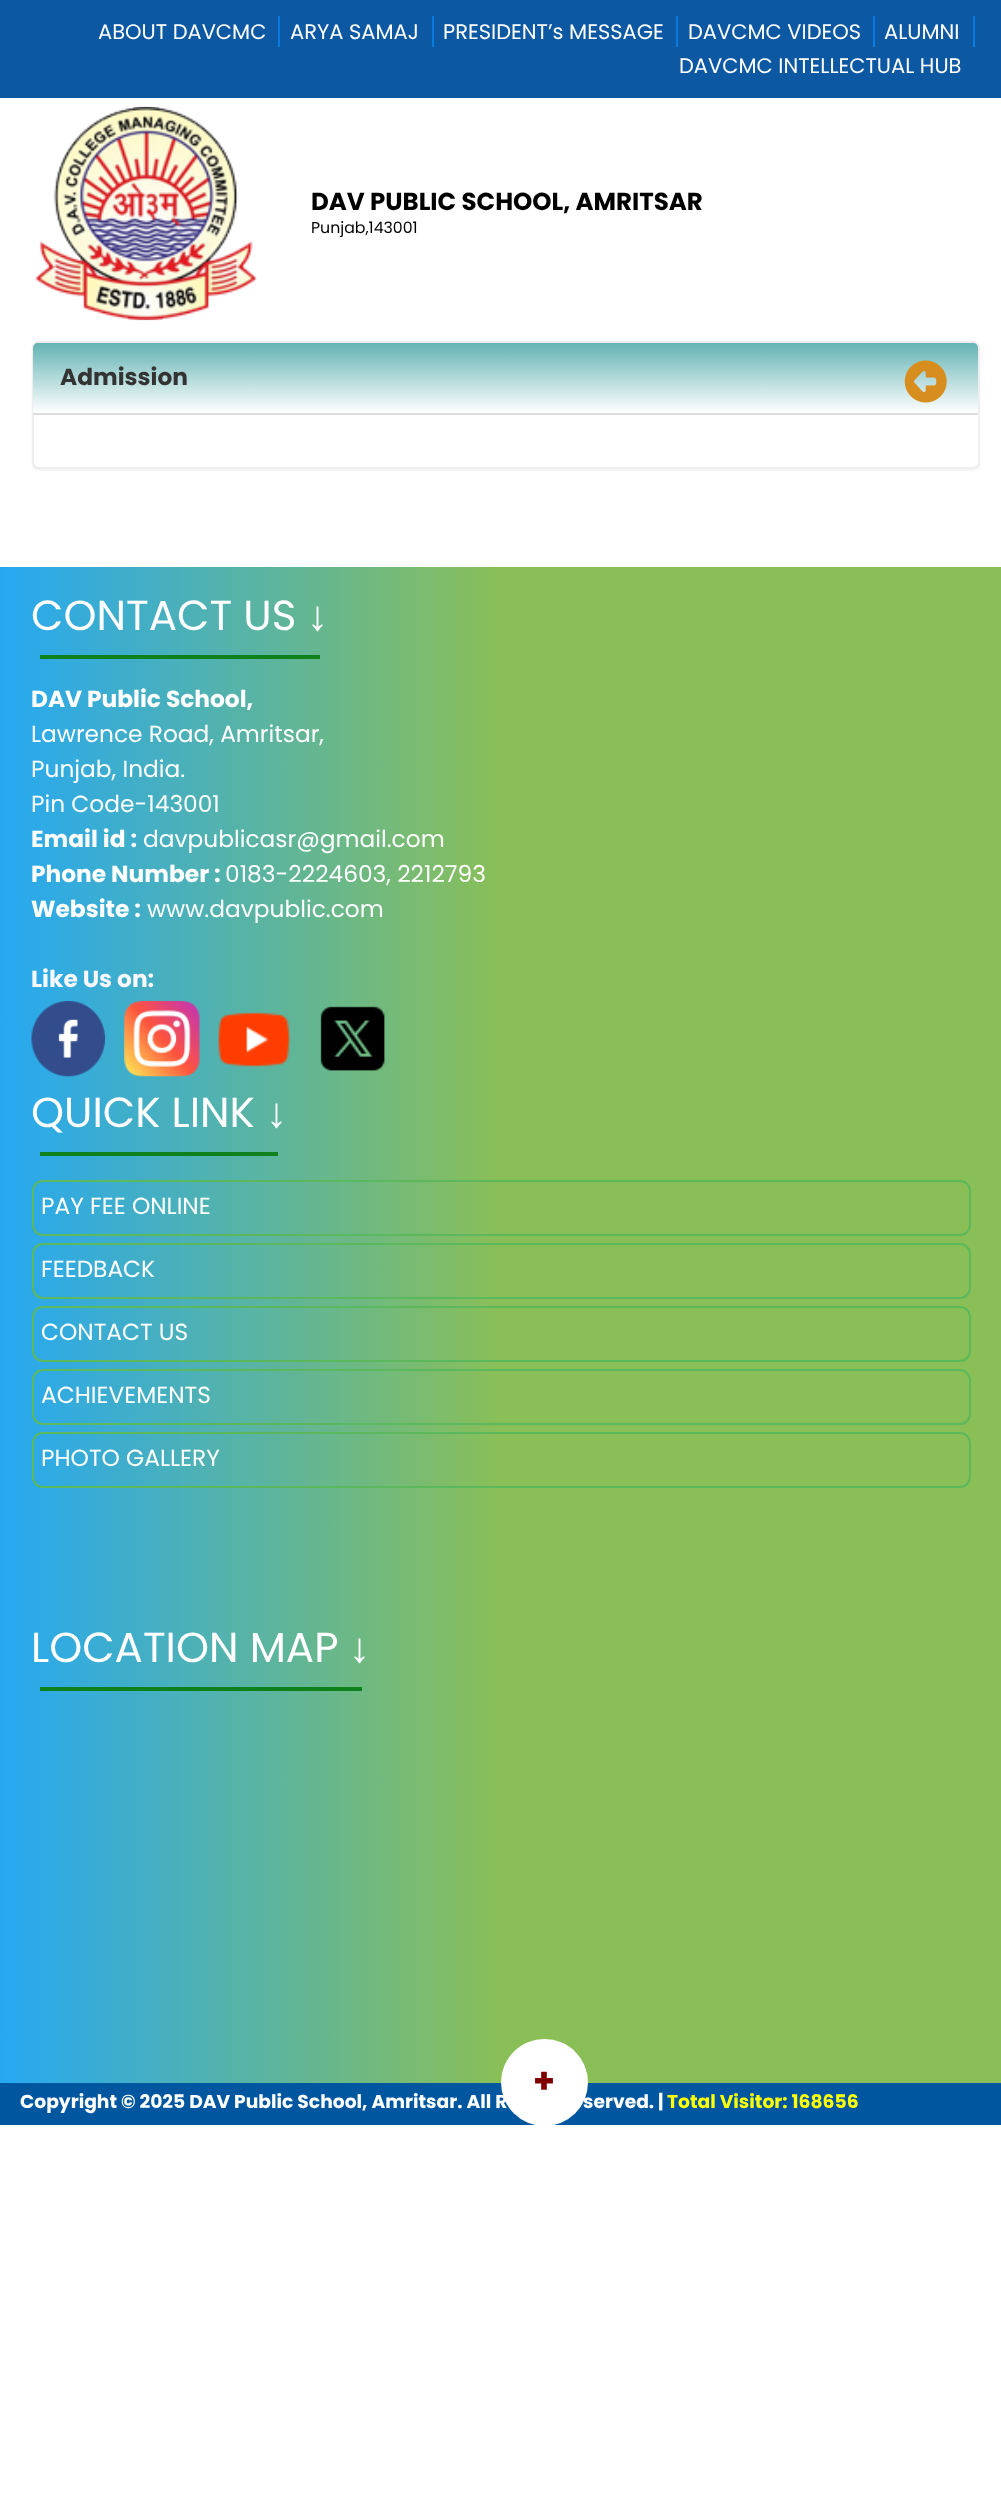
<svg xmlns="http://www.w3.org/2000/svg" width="1001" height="2498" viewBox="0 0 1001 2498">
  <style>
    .t1 { font: 21px Poppins; fill: #fff; }
    .t2 { font: bold 24.5px Poppins; fill: #000; }
    .t3 { font: 15.75px Poppins; fill: #000; }
    .t4 { font: bold 23.3px Poppins; fill: #333; }
    .t5 { font: 42px Poppins; fill: #fff; }
    .t6 { font: 42px Liberation Sans; fill: #fff; }
    .t7 { font: bold 23.3px Poppins; fill: #fff; }
    .t8 { font: 23.3px Poppins; fill: #fff; }
    .t9 { font: bold 23.3px Poppins; fill: #f8f8ff; }
    .t10 { font: bold 35px Poppins; fill: #800000; }
    .t11 { font: bold 18.7px Poppins; fill: #fff; }
    .t12 { font: bold 18.7px Poppins; fill: #ffff09; }
  </style>
  <defs>
    <linearGradient id="g1" gradientUnits="userSpaceOnUse" x1="506" y1="343" x2="506" y2="413"><stop offset="0" stop-color="#64b3b4"/><stop offset="1" stop-color="#fff"/></linearGradient>
    <linearGradient id="g2" gradientUnits="userSpaceOnUse" x1="0" y1="1325" x2="1001" y2="1325"><stop offset="0" stop-color="#26a8f2"/><stop offset="0.5" stop-color="#8abf57"/></linearGradient>
  </defs>
  <rect width="100%" height="100%" fill="#fff"/>
  <rect x="0" y="0" width="1001" height="98" fill="#0c58a2"/>
  <rect x="278" y="16" width="2" height="31" fill="#087ae1"/>
  <text x="98" y="39" class="t1">ABOUT DAVCMC</text>
  <rect x="432" y="16" width="2" height="31" fill="#087ae1"/>
  <text x="290" y="39" class="t1">ARYA SAMAJ</text>
  <rect x="676" y="16" width="2" height="31" fill="#087ae1"/>
  <text x="443" y="39" class="t1">PRESIDENT’s MESSAGE</text>
  <rect x="873" y="16" width="2" height="31" fill="#087ae1"/>
  <text x="688" y="39" class="t1">DAVCMC VIDEOS</text>
  <rect x="973" y="16" width="2" height="31" fill="#087ae1"/>
  <text x="884" y="39" class="t1">ALUMNI</text>
  <text x="679" y="73" class="t1">DAVCMC INTELLECTUAL HUB</text>
  <image x="34" y="106" width="224" height="215" href="images/1.png"/>
  <text x="311" y="210" class="t2">DAV PUBLIC SCHOOL, AMRITSAR</text>
  <text x="311" y="233" class="t3">Punjab,143001</text>
  <rect x="32" y="343" width="948" height="128" rx="7" fill="#0000000d" filter="blur(1px)"/>
  <rect x="33" y="342" width="946" height="126" rx="6" fill="#fff" stroke="#eee" stroke-width="2"/>
  <path d="M38 343H973C976 343 978 345 978 348V413H33V348C33 345 35 343 38 343Z" fill="url(#g1)"/>
  <rect x="33" y="413" width="945" height="2" fill="#ddd"/>
  <text x="60" y="385" class="t4">Admission</text>
  <image x="904" y="360" width="43" height="43" href="images/2.png"/>
  <rect x="0" y="567" width="1001" height="1516" fill="url(#g2)"/>
  <text x="31" y="630" class="t5">CONTACT US</text>
  <text x="307" y="630" class="t6">↓</text>
  <rect x="40" y="655" width="280" height="4" fill="#0e801c"/>
  <text x="31" y="707" class="t7">DAV Public School,</text>
  <text x="31" y="742" class="t8">Lawrence Road, Amritsar,</text>
  <text x="31" y="777" class="t8">Punjab, India.</text>
  <text x="31" y="812" class="t8">Pin Code-143001</text>
  <text x="31" y="847" class="t7">Email id :</text>
  <text x="143" y="847" class="t8">davpublicasr@gmail.com</text>
  <text x="31" y="882" class="t7">Phone Number :</text>
  <text x="225" y="882" class="t8">0183-2224603, 2212793</text>
  <text x="31" y="917" class="t7">Website :</text>
  <text x="147" y="917" class="t8">www.davpublic.com</text>
  <text x="31" y="987" class="t9">Like Us on:</text>
  <image x="31" y="1001" width="74" height="76" href="images/3.png"/>
  <image x="124" y="1001" width="76" height="76" href="images/4.png"/>
  <image x="218" y="1012" width="73" height="55" href="images/5.png"/>
  <image x="320" y="1006" width="65" height="65" href="images/6.png"/>
  <text x="31" y="1127" class="t5">QUICK LINK</text>
  <text x="266" y="1127" class="t6">↓</text>
  <rect x="40" y="1152" width="238" height="4" fill="#0e801c"/>
  <rect x="33" y="1181" width="937" height="54" rx="10" fill="none" stroke="#5cb85c" stroke-width="2"/>
  <text x="41" y="1214" class="t8">PAY FEE ONLINE</text>
  <rect x="33" y="1244" width="937" height="54" rx="10" fill="none" stroke="#5cb85c" stroke-width="2"/>
  <text x="41" y="1277" class="t8">FEEDBACK</text>
  <rect x="33" y="1307" width="937" height="54" rx="10" fill="none" stroke="#5cb85c" stroke-width="2"/>
  <text x="41" y="1340" class="t8">CONTACT US</text>
  <rect x="33" y="1370" width="937" height="54" rx="10" fill="none" stroke="#5cb85c" stroke-width="2"/>
  <text x="41" y="1403" class="t8">ACHIEVEMENTS</text>
  <rect x="33" y="1433" width="937" height="54" rx="10" fill="none" stroke="#5cb85c" stroke-width="2"/>
  <text x="41" y="1466" class="t8">PHOTO GALLERY</text>
  <text x="31" y="1662" class="t5">LOCATION MAP</text>
  <text x="349" y="1662" class="t6">↓</text>
  <rect x="40" y="1687" width="322" height="4" fill="#0e801c"/>
  <rect x="0" y="2083" width="1001" height="42" fill="#00579f"/>
  <circle cx="544.5" cy="2082.5" r="43.5" fill="#fff"/>
  <text x="533" y="2093" class="t10">+</text>
  <text x="20" y="2108" class="t11">Copyright © 2025 DAV Public School, Amritsar. All R</text>
  <text x="583" y="2108" class="t11">served.</text>
  <text x="658" y="2108" class="t11">|</text>
  <text x="667" y="2108" class="t12">Total Visitor: 168656</text>
</svg>
